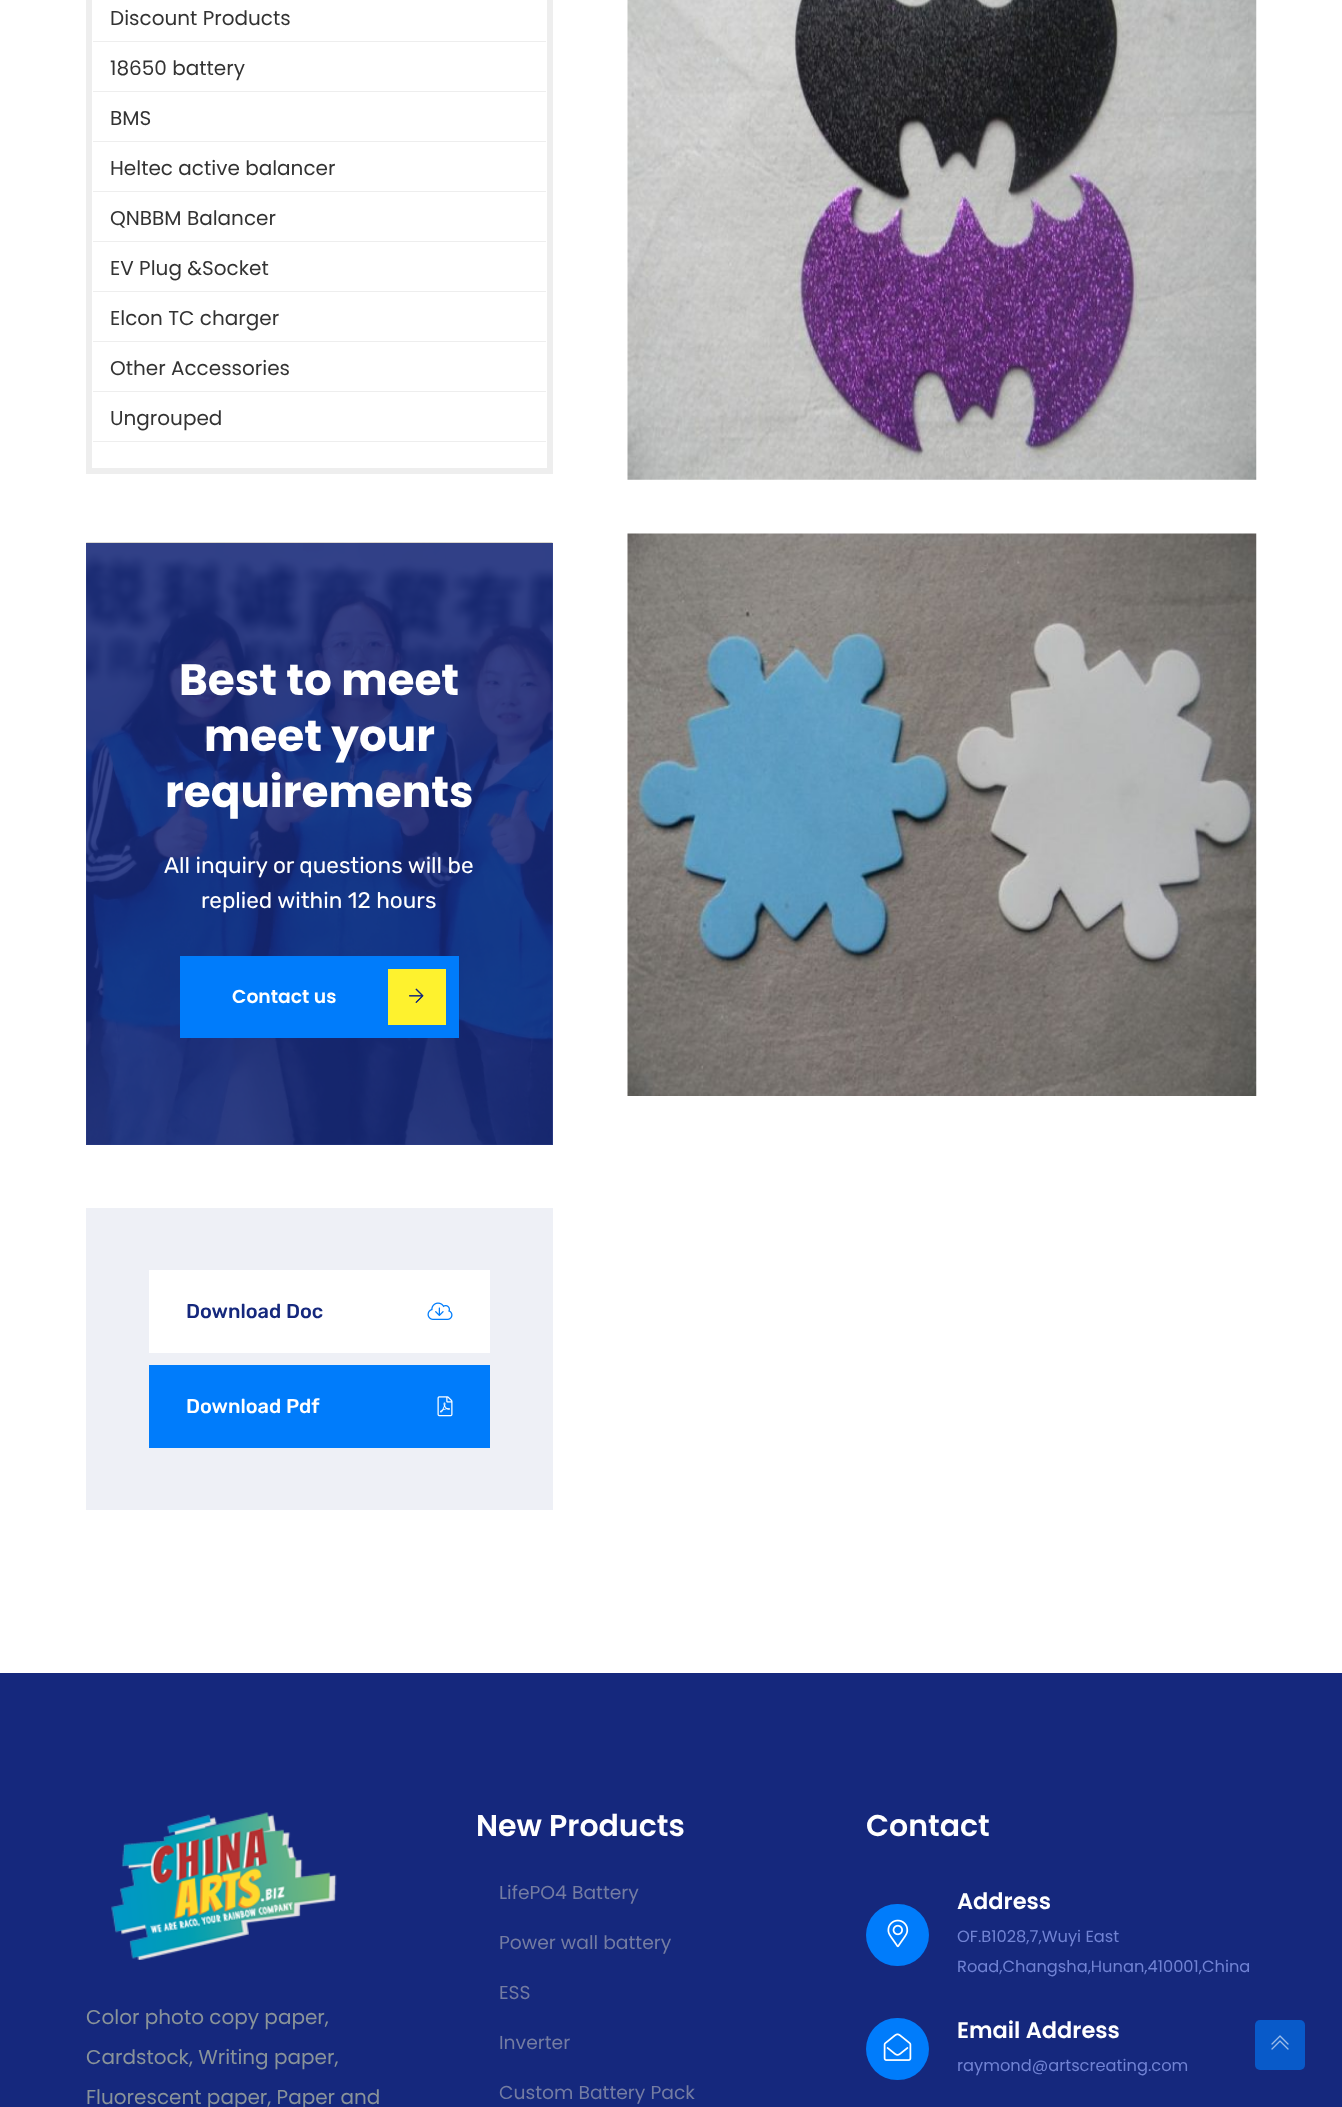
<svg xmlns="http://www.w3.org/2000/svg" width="1342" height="2107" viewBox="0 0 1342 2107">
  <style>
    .t1 { font: 20px Poppins; fill: #333; }
    .t2 { font: bold 43.75px Poppins; fill: #fff; }
    .t3 { font: 22.5px Rubik; fill: #fff; }
    .t4 { font: 600 18.75px Poppins; fill: #fff; }
    .t5 { font: 500 20px Rubik; fill: #15287d; }
    .t6 { font: 500 20px Rubik; fill: #fff; }
    .t7 { font: 20px Poppins; fill: #899399; }
    .t8 { font: 600 30px Poppins; fill: #fff; }
    .t9 { font: 18.75px Poppins; fill: #747ca2; }
    .t10 { font: 600 22.5px Poppins; fill: #fff; }
    .t11 { font: 16.25px Poppins; fill: #7183d4; }
  </style>
  <rect width="100%" height="100%" fill="#fff"/>
  <rect x="86" y="543" width="467" height="602" fill="#384891"/>
  <rect x="89" y="-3" width="461" height="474" fill="none" stroke="#eee" stroke-width="6"/>
  <rect x="93" y="41" width="453" height="1" fill="#eee"/>
  <text x="110" y="25" class="t1">Discount Products</text>
  <rect x="93" y="91" width="453" height="1" fill="#eee"/>
  <text x="110" y="75" class="t1">18650 battery</text>
  <rect x="93" y="141" width="453" height="1" fill="#eee"/>
  <text x="110" y="125" class="t1">BMS</text>
  <rect x="93" y="191" width="453" height="1" fill="#eee"/>
  <text x="110" y="175" class="t1">Heltec active balancer</text>
  <rect x="93" y="241" width="453" height="1" fill="#eee"/>
  <text x="110" y="225" class="t1">QNBBM Balancer</text>
  <rect x="93" y="291" width="453" height="1" fill="#eee"/>
  <text x="110" y="275" class="t1">EV Plug &amp;Socket</text>
  <rect x="93" y="341" width="453" height="1" fill="#eee"/>
  <text x="110" y="325" class="t1">Elcon TC charger</text>
  <rect x="93" y="391" width="453" height="1" fill="#eee"/>
  <text x="110" y="375" class="t1">Other Accessories</text>
  <rect x="93" y="441" width="453" height="1" fill="#eee"/>
  <text x="110" y="425" class="t1">Ungrouped</text>
  <image x="86" y="542" width="467" height="603" href="images/1.png"/>
  <text x="179" y="695" class="t2">Best to meet</text>
  <text x="204" y="751" class="t2">meet your</text>
  <text x="165" y="807" class="t2">requirements</text>
  <text x="164" y="873" class="t3">All inquiry or questions will be</text>
  <text x="201" y="908" class="t3">replied within 12 hours</text>
  <rect x="180" y="956" width="279" height="82" fill="#007cfb"/>
  <text x="232" y="1003" class="t4">Contact us</text>
  <rect x="388" y="969" width="58" height="56" fill="#fef22e"/>
  <image x="409" y="988" width="15" height="15" href="images/2.png"/>
  <image x="409" y="988" width="15" height="15" href="images/3.png"/>
  <rect x="86" y="1208" width="467" height="302" fill="#eef0f6"/>
  <rect x="149" y="1270" width="341" height="83" fill="#fff"/>
  <text x="186" y="1318" class="t5">Download Doc</text>
  <image x="427" y="1302" width="26" height="18" href="images/4.png"/>
  <rect x="149" y="1365" width="341" height="83" fill="#007cfb"/>
  <text x="186" y="1413" class="t6">Download Pdf</text>
  <image x="437" y="1396" width="16" height="21" href="images/5.png"/>
  <image x="627" y="0" width="630" height="480" href="images/6.png"/>
  <image x="627" y="533" width="630" height="563" href="images/7.png"/>
  <rect x="0" y="1673" width="1342" height="434" fill="#15287d"/>
  <image x="111" y="1812" width="226" height="148" href="images/8.png"/>
  <text x="86" y="2024" class="t7">Color photo copy paper,</text>
  <text x="86" y="2064" class="t7">Cardstock, Writing paper,</text>
  <text x="86" y="2104" class="t7">Fluorescent paper, Paper and</text>
  <text x="476" y="1836" class="t8">New Products</text>
  <text x="499" y="1899" class="t9">LifePO4 Battery</text>
  <text x="499" y="1949" class="t9">Power wall battery</text>
  <text x="499" y="1999" class="t9">ESS</text>
  <text x="499" y="2049" class="t9">Inverter</text>
  <text x="499" y="2099" class="t9">Custom Battery Pack</text>
  <text x="866" y="1836" class="t8">Contact</text>
  <rect x="866" y="1904" width="63" height="62" rx="31" fill="#007cfb"/>
  <image x="887" y="1919" width="22" height="29" href="images/9.png"/>
  <text x="957" y="1909" class="t10">Address</text>
  <text x="957" y="1942" class="t11">OF.B1028,7,Wuyi East</text>
  <text x="957" y="1972" class="t11">Road,Changsha,Hunan,410001,China</text>
  <rect x="866" y="2018" width="63" height="62" rx="31" fill="#007cfb"/>
  <image x="883" y="2033" width="29" height="28" href="images/10.png"/>
  <text x="957" y="2038" class="t10">Email Address</text>
  <text x="957" y="2071" class="t11">raymond@artscreating.com</text>
  <rect x="1255" y="2020" width="50" height="50" rx="5" fill="#085ac9"/>
  <image x="1271" y="2035" width="18" height="15" href="images/11.png"/>
</svg>
